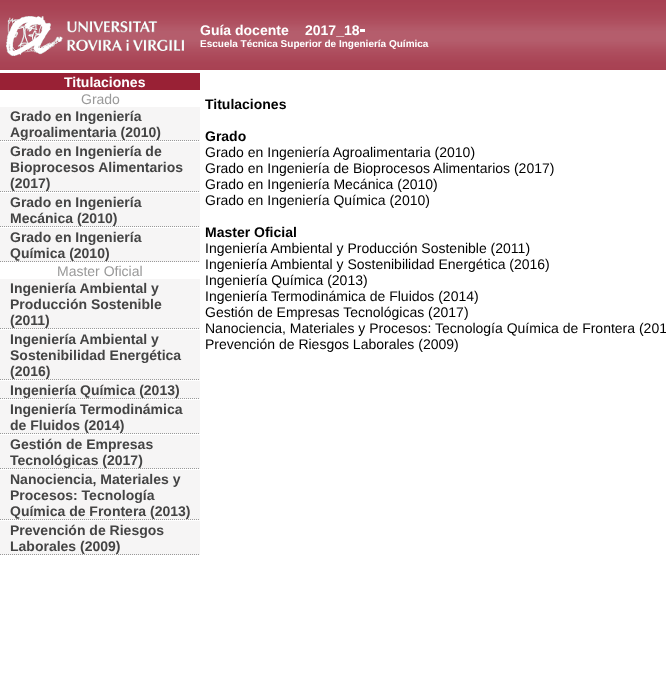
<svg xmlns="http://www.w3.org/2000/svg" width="666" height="698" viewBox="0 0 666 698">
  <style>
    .t1 { font: bold 14px Liberation Sans; fill: #fff; }
    .t2 { font: bold 10px Liberation Sans; fill: #fff; }
    .t3 { font: 14px Liberation Sans; fill: #999; }
    .t4 { font: bold 14px Liberation Sans; fill: #444; }
    .t5 { font: bold 14px Liberation Sans; fill: #000; }
    .t6 { font: 14px Liberation Sans; fill: #000; }
  </style>
  <rect width="100%" height="100%" fill="#fff"/>
  <image x="0" y="0" width="666" height="70" href="images/1.png"/>
  <text x="200" y="35" class="t1">Guía docente</text>
  <text x="200" y="47" class="t2">Escuela Técnica Superior de Ingeniería Química</text>
  <rect x="0" y="73" width="200" height="17" fill="#992135"/>
  <text x="64" y="87" class="t1">Titulaciones</text>
  <text x="81" y="104" class="t3">Grado</text>
  <rect x="0" y="107" width="200" height="34" fill="#f6f5f5"/>
  <path d="M0 140.5H200" fill="none" stroke="#999" stroke-dasharray="1 1"/>
  <text x="10" y="121" class="t4">Grado en Ingeniería</text>
  <text x="10" y="137" class="t4">Agroalimentaria (2010)</text>
  <rect x="0" y="142" width="200" height="50" fill="#f6f5f5"/>
  <path d="M0 191.5H200" fill="none" stroke="#999" stroke-dasharray="1 1"/>
  <text x="10" y="156" class="t4">Grado en Ingeniería de</text>
  <text x="10" y="172" class="t4">Bioprocesos Alimentarios</text>
  <text x="10" y="188" class="t4">(2017)</text>
  <rect x="0" y="193" width="200" height="34" fill="#f6f5f5"/>
  <path d="M0 226.5H200" fill="none" stroke="#999" stroke-dasharray="1 1"/>
  <text x="10" y="207" class="t4">Grado en Ingeniería</text>
  <text x="10" y="223" class="t4">Mecánica (2010)</text>
  <rect x="0" y="228" width="200" height="34" fill="#f6f5f5"/>
  <path d="M0 261.5H200" fill="none" stroke="#999" stroke-dasharray="1 1"/>
  <text x="10" y="242" class="t4">Grado en Ingeniería</text>
  <text x="10" y="258" class="t4">Química (2010)</text>
  <text x="57" y="276" class="t3">Master Oficial</text>
  <rect x="0" y="279" width="200" height="50" fill="#f6f5f5"/>
  <path d="M0 328.5H200" fill="none" stroke="#999" stroke-dasharray="1 1"/>
  <text x="10" y="293" class="t4">Ingeniería Ambiental y</text>
  <text x="10" y="309" class="t4">Producción Sostenible</text>
  <text x="10" y="325" class="t4">(2011)</text>
  <rect x="0" y="330" width="200" height="50" fill="#f6f5f5"/>
  <path d="M0 379.5H200" fill="none" stroke="#999" stroke-dasharray="1 1"/>
  <text x="10" y="344" class="t4">Ingeniería Ambiental y</text>
  <text x="10" y="360" class="t4">Sostenibilidad Energética</text>
  <text x="10" y="376" class="t4">(2016)</text>
  <rect x="0" y="381" width="200" height="18" fill="#f6f5f5"/>
  <path d="M0 398.5H200" fill="none" stroke="#999" stroke-dasharray="1 1"/>
  <text x="10" y="395" class="t4">Ingeniería Química (2013)</text>
  <rect x="0" y="400" width="200" height="34" fill="#f6f5f5"/>
  <path d="M0 433.5H200" fill="none" stroke="#999" stroke-dasharray="1 1"/>
  <text x="10" y="414" class="t4">Ingeniería Termodinámica</text>
  <text x="10" y="430" class="t4">de Fluidos (2014)</text>
  <rect x="0" y="435" width="200" height="34" fill="#f6f5f5"/>
  <path d="M0 468.5H200" fill="none" stroke="#999" stroke-dasharray="1 1"/>
  <text x="10" y="449" class="t4">Gestión de Empresas</text>
  <text x="10" y="465" class="t4">Tecnológicas (2017)</text>
  <rect x="0" y="470" width="200" height="50" fill="#f6f5f5"/>
  <path d="M0 519.5H200" fill="none" stroke="#999" stroke-dasharray="1 1"/>
  <text x="10" y="484" class="t4">Nanociencia, Materiales y</text>
  <text x="10" y="500" class="t4">Procesos: Tecnología</text>
  <text x="10" y="516" class="t4">Química de Frontera (2013)</text>
  <rect x="0" y="521" width="200" height="34" fill="#f6f5f5"/>
  <path d="M0 554.5H200" fill="none" stroke="#999" stroke-dasharray="1 1"/>
  <text x="10" y="535" class="t4">Prevención de Riesgos</text>
  <text x="10" y="551" class="t4">Laborales (2009)</text>
  <text x="205" y="109" class="t5">Titulaciones</text>
  <text x="205" y="141" class="t5">Grado</text>
  <text x="205" y="157" class="t6">Grado en Ingeniería Agroalimentaria (2010)</text>
  <text x="205" y="173" class="t6">Grado en Ingeniería de Bioprocesos Alimentarios (2017)</text>
  <text x="205" y="189" class="t6">Grado en Ingeniería Mecánica (2010)</text>
  <text x="205" y="205" class="t6">Grado en Ingeniería Química (2010)</text>
  <text x="205" y="237" class="t5">Master Oficial</text>
  <text x="205" y="253" class="t6">Ingeniería Ambiental y Producción Sostenible (2011)</text>
  <text x="205" y="269" class="t6">Ingeniería Ambiental y Sostenibilidad Energética (2016)</text>
  <text x="205" y="285" class="t6">Ingeniería Química (2013)</text>
  <text x="205" y="301" class="t6">Ingeniería Termodinámica de Fluidos (2014)</text>
  <text x="205" y="317" class="t6">Gestión de Empresas Tecnológicas (2017)</text>
  <text x="205" y="333" class="t6">Nanociencia, Materiales y Procesos: Tecnología Química de Frontera (201</text>
  <text x="205" y="349" class="t6">Prevención de Riesgos Laborales (2009)</text>
  <text x="305" y="35" class="t1">2017_18</text>
  <rect x="360" y="29" width="5" height="3" fill="#fff"/>
</svg>
